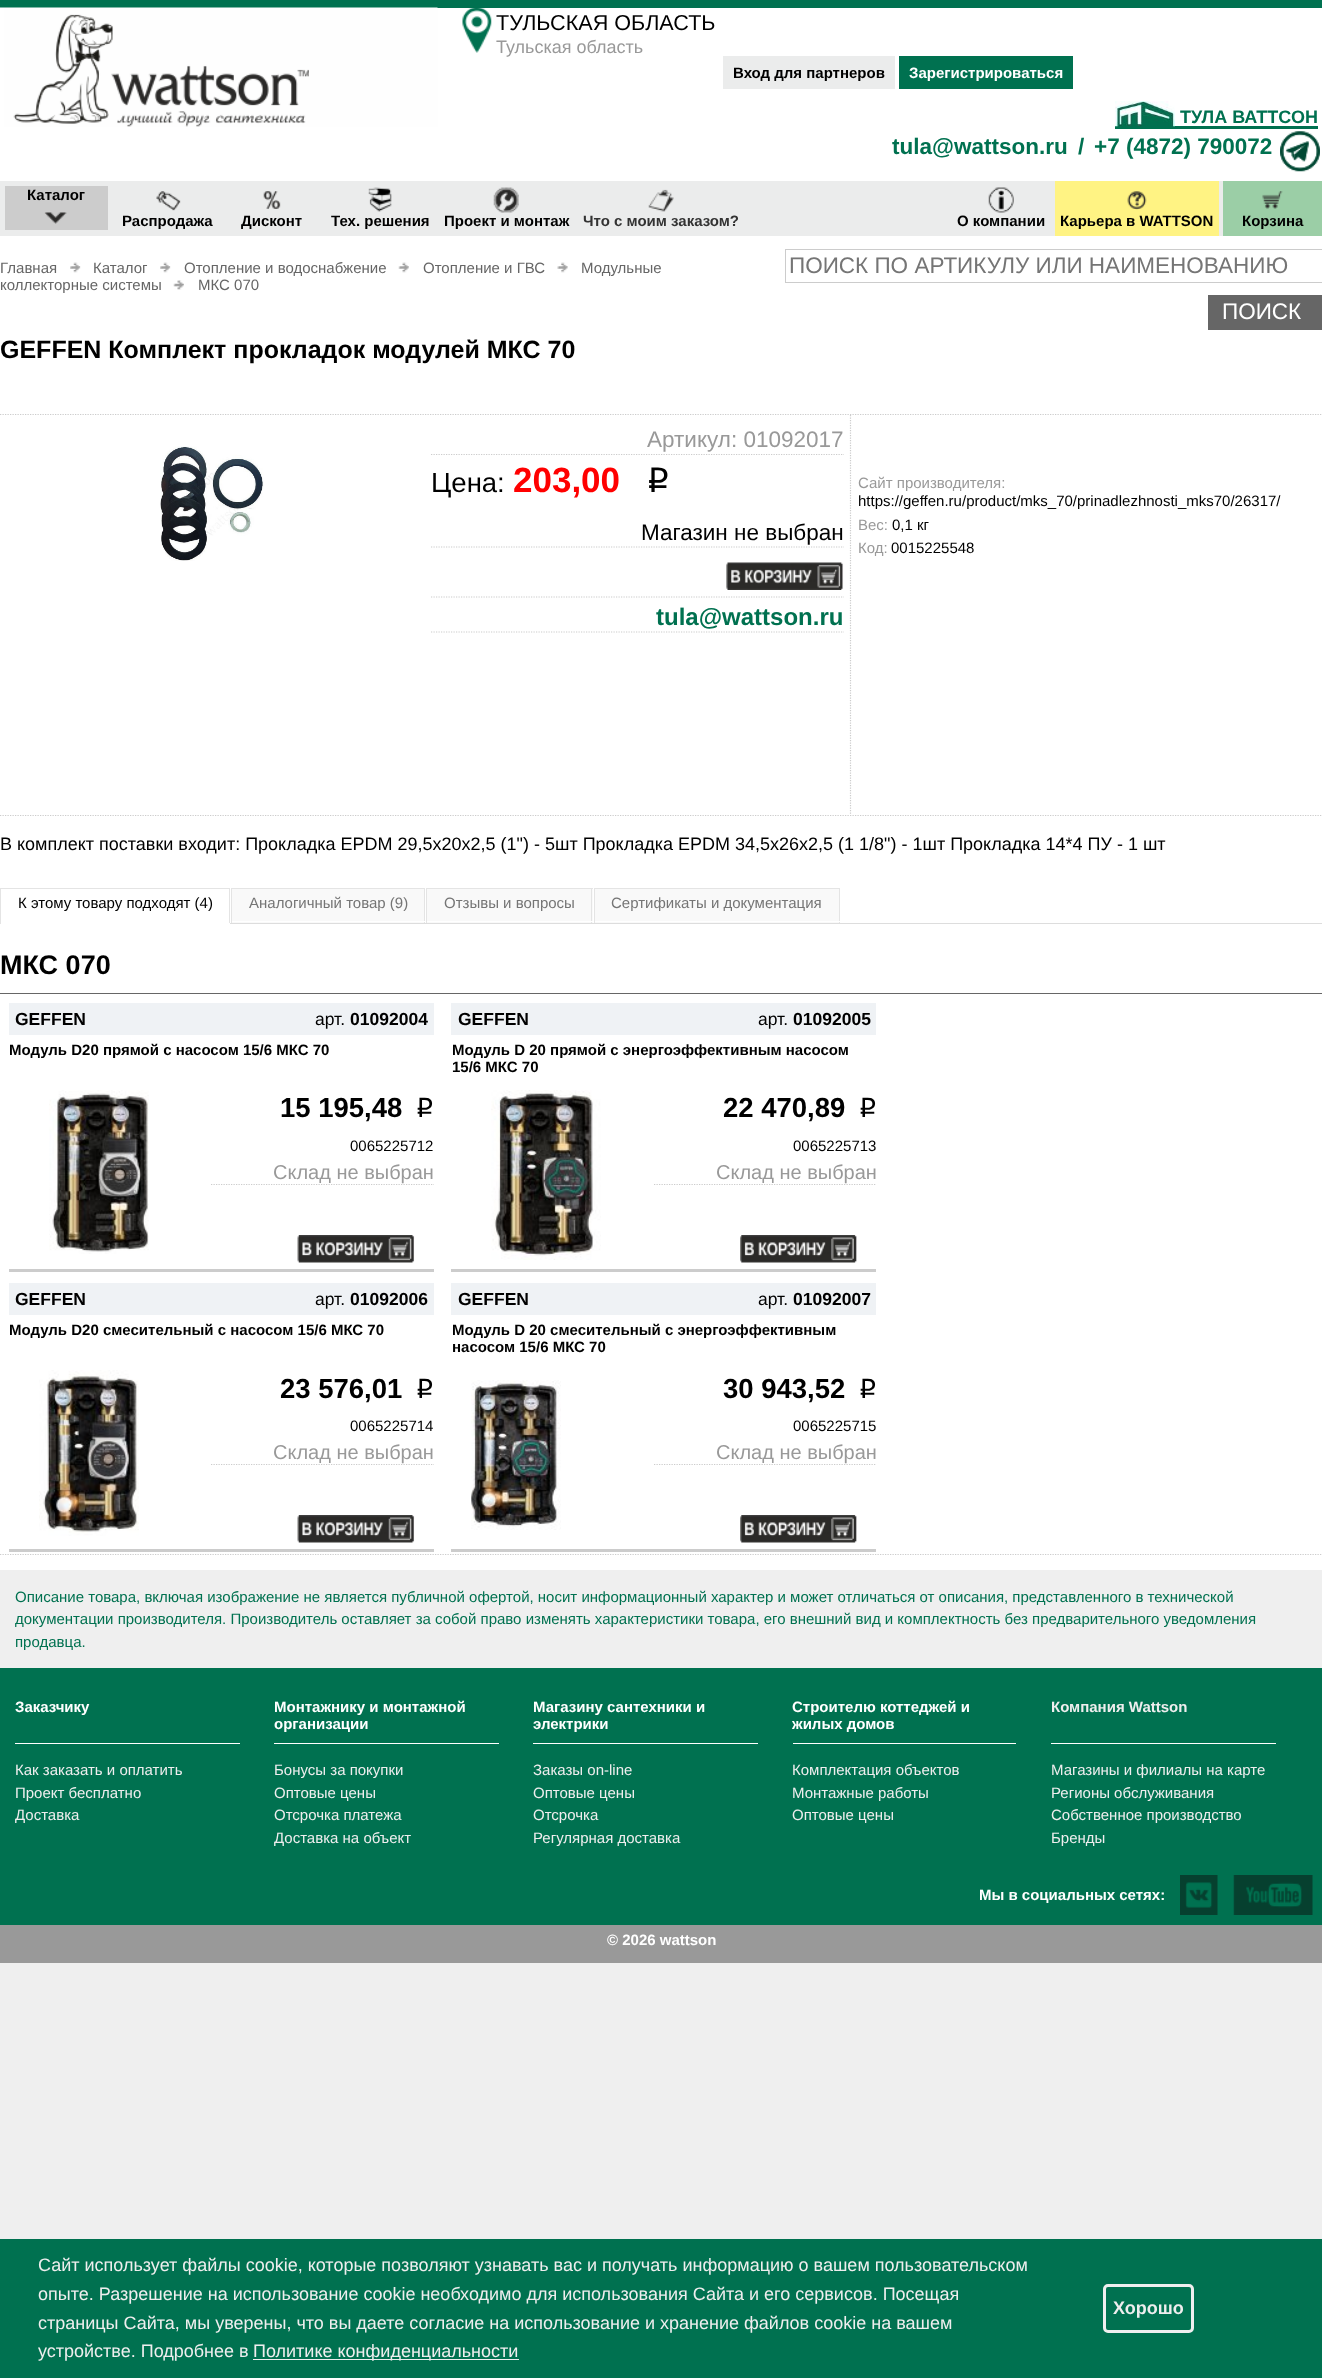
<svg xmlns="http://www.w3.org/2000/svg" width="1322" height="2378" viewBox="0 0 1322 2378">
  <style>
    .t1 { font: 21.6px Liberation Sans; fill: #000; }
    .t2 { font: 18px Liberation Sans; fill: #999; }
    .t3 { font: bold 15px Liberation Sans; fill: #000; }
    .t4 { font: bold 15px Liberation Sans; fill: #fff; }
    .t5 { font: bold 18px Liberation Sans; fill: #007150; }
    .t6 { font: bold 22.5px Liberation Sans; fill: #007150; }
    .t7 { font: bold 15px Liberation Sans; fill: #333; }
    .t8 { font: 15px Liberation Sans; fill: #666; }
    .t9 { font: 22.5px Liberation Sans; fill: #757575; }
    .t10 { font: 22.5px Liberation Sans; fill: #fff; }
    .t11 { font: bold 25px Liberation Sans; fill: #000; }
    .t12 { font: 22.5px Liberation Sans; fill: #999; }
    .t13 { font: 27.5px Liberation Sans; fill: #000; }
    .t14 { font: bold 35px Liberation Sans; fill: #f00; }
    .t15 { font: 35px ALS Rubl; fill: #000; }
    .t16 { font: 22.5px Liberation Sans; fill: #000; }
    .t17 { font: bold 24px Liberation Sans; fill: #007150; }
    .t18 { font: 15px Liberation Sans; fill: #999; }
    .t19 { font: 15px Liberation Sans; fill: #000; }
    .t20 { font: 18px Liberation Sans; fill: #000; }
    .t21 { font: 15px Liberation Sans; fill: #757575; }
    .t22 { font: bold 27px Liberation Sans; fill: #000; }
    .t23 { font: bold 17.5px Liberation Sans; fill: #000; }
    .t24 { font: 17.5px Liberation Sans; fill: #000; }
    .t25 { font: bold 27.5px Liberation Sans; fill: #000; }
    .t26 { font: 27.5px ALS Rubl; fill: #000; }
    .t27 { font: 20px Liberation Sans; fill: #999; }
    .t28 { font: 15px Liberation Sans; fill: #007150; }
    .t29 { font: 15px Liberation Sans; fill: #eee; }
    .t30 { font: bold 15px Liberation Sans; fill: #eee; }
    .t31 { font: 18px Liberation Sans; fill: #eee; }
    .t32 { font: bold 18px Liberation Sans; fill: #eee; }
  </style>
  <rect width="100%" height="100%" fill="#efefef"/>
  <rect x="0" y="8" width="1322" height="1562" fill="#fff"/>
  <rect x="0" y="0" width="1322" height="8" fill="#007150"/>
  <image x="0" y="7" width="438" height="120" href="images/1.png"/>
  <image x="462" y="8" width="30" height="45" href="images/2.png"/>
  <text x="496" y="30" class="t1">ТУЛЬСКАЯ ОБЛАСТЬ</text>
  <text x="496" y="53" class="t2">Тульская область</text>
  <rect x="723" y="56" width="172" height="33" fill="#ebecec"/>
  <text x="733" y="78" class="t3">Вход для партнеров</text>
  <rect x="899" y="56" width="174" height="33" fill="#007150"/>
  <text x="909" y="78" class="t4">Зарегистрироваться</text>
  <rect x="1115" y="126" width="203" height="3" fill="#007150"/>
  <image x="1115" y="101" width="60" height="26" href="images/3.png"/>
  <text x="1180" y="123" class="t5">ТУЛА ВАТТСОН</text>
  <text x="892" y="154" class="t6">tula@wattson.ru</text>
  <text x="1078" y="154" class="t6">/</text>
  <text x="1094" y="154" class="t6">+7 (4872) 790072</text>
  <image x="1280" y="131" width="40" height="41" href="images/4.png"/>
  <rect x="0" y="181" width="1223" height="55" fill="#ebecec"/>
  <rect x="5" y="186" width="103" height="44" fill="#ccc"/>
  <text x="27" y="200" class="t3">Каталог</text>
  <image x="44" y="212" width="23" height="12" href="images/5.png"/>
  <image x="156" y="191" width="25" height="20" href="images/6.png"/>
  <text x="122" y="226" class="t3">Распродажа</text>
  <image x="263" y="191" width="18" height="18" href="images/7.png"/>
  <text x="241" y="226" class="t3">Дисконт</text>
  <image x="368" y="187" width="24" height="25" href="images/8.png"/>
  <text x="331" y="226" class="t3">Тех. решения</text>
  <image x="493" y="187" width="26" height="26" href="images/9.png"/>
  <text x="444" y="226" class="t3">Проект и монтаж</text>
  <image x="648" y="189" width="26" height="23" href="images/10.png"/>
  <text x="583" y="226" class="t7">Что с моим заказом?</text>
  <image x="988" y="187" width="26" height="26" href="images/11.png"/>
  <text x="957" y="226" class="t3">О компании</text>
  <rect x="1055" y="181" width="164" height="55" fill="#fff383"/>
  <image x="1127" y="191" width="20" height="19" href="images/12.png"/>
  <text x="1060" y="226" class="t3">Карьера в WATTSON</text>
  <rect x="1223" y="181" width="99" height="55" fill="#9bcea6"/>
  <image x="1262" y="191" width="21" height="18" href="images/13.png"/>
  <text x="1242" y="226" class="t3">Корзина</text>
  <text x="0" y="273" class="t8">Главная</text>
  <image x="70" y="262" width="11" height="11" href="images/14.png"/>
  <text x="93" y="273" class="t8">Каталог</text>
  <image x="160" y="262" width="11" height="11" href="images/14.png"/>
  <text x="184" y="273" class="t8">Отопление и водоснабжение</text>
  <image x="398" y="262" width="11" height="11" href="images/15.png"/>
  <text x="423" y="273" class="t8">Отопление и ГВС</text>
  <image x="557" y="262" width="11" height="11" href="images/16.png"/>
  <text x="581" y="273" class="t8">Модульные</text>
  <text x="0" y="290" class="t8">коллекторные системы</text>
  <image x="173" y="280" width="11" height="10" href="images/17.png"/>
  <text x="198" y="290" class="t8">МКС 070</text>
  <rect x="785.5" y="249.5" width="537" height="33" fill="none" stroke="#ccc"/>
  <text x="789" y="273" class="t9">ПОИСК ПО АРТИКУЛУ ИЛИ НАИМЕНОВАНИЮ</text>
  <rect x="1208" y="295" width="114" height="35" fill="#666"/>
  <text x="1222" y="319" class="t10">ПОИСК</text>
  <text x="0" y="358" class="t11">GEFFEN Комплект прокладок модулей МКС 70</text>
  <path d="M0 414.5H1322.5" fill="none" stroke="#ccc" stroke-width="1.2" stroke-dasharray="1.25 1.25"/>
  <path d="M0 815.5H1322.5" fill="none" stroke="#ccc" stroke-width="1.2" stroke-dasharray="1.25 1.25"/>
  <image x="160" y="446" width="104" height="115" href="images/18.png"/>
  <rect x="425" y="415" width="424" height="400" fill="#ffffffb3"/>
  <path d="M431 454.5H844" fill="none" stroke="#ccc" stroke-width="1.2" stroke-dasharray="1.25 1.25"/>
  <text x="647" y="447" class="t12">Артикул: 01092017</text>
  <text x="431" y="492" class="t13">Цена:</text>
  <text x="513" y="492" class="t14">203,00</text>
  <text x="647" y="492" class="t15">q</text>
  <path d="M431 547H844" fill="none" stroke="#ccc" stroke-width="1.2" stroke-dasharray="1.25 1.25"/>
  <text x="641" y="540" class="t16">Магазин не выбран</text>
  <image x="726" y="562" width="118" height="28" href="images/19.png"/>
  <path d="M431 597H844" fill="none" stroke="#ccc" stroke-width="1.2" stroke-dasharray="1.25 1.25"/>
  <path d="M431 632H844" fill="none" stroke="#ccc" stroke-width="1.2" stroke-dasharray="1.25 1.25"/>
  <text x="656" y="625" class="t17">tula@wattson.ru</text>
  <path d="M850.5 415V815" fill="none" stroke="#ccc" stroke-width="1.2" stroke-dasharray="1.25 1.25"/>
  <text x="858" y="488" class="t18">Сайт производителя:</text>
  <text x="858" y="506" class="t19">https://geffen.ru/product/mks_70/prinadlezhnosti_mks70/26317/</text>
  <text x="858" y="530" class="t18">Вес:</text>
  <text x="892" y="530" class="t19">0,1 кг</text>
  <text x="858" y="553" class="t18">Код:</text>
  <text x="891" y="553" class="t19">0015225548</text>
  <text x="0" y="850" class="t20">В комплект поставки входит: Прокладка EPDM 29,5х20х2,5 (1") - 5шт Прокладка EPDM 34,5х26х2,5 (1 1/8") - 1шт Прокладка 14*4 ПУ - 1 шт</text>
  <rect x="230" y="923" width="1092" height="1" fill="#ddd"/>
  <rect x="0" y="888" width="230" height="1" fill="#e4e4e4"/>
  <rect x="229" y="888" width="1" height="36" fill="#e4e4e4"/>
  <rect x="229" y="923" width="1" height="1" fill="#fff"/>
  <rect x="0" y="888" width="1" height="36" fill="#e4e4e4"/>
  <text x="18" y="908" class="t19">К этому товару подходят (4)</text>
  <rect x="232" y="889" width="192" height="34" fill="#f9f9f9"/>
  <rect x="231" y="888" width="194" height="1" fill="#e4e4e4"/>
  <rect x="424" y="888" width="1" height="35" fill="#e4e4e4"/>
  <rect x="231" y="921" width="194" height="1" fill="#fff"/>
  <rect x="231" y="888" width="1" height="35" fill="#e4e4e4"/>
  <text x="249" y="908" class="t21">Аналогичный товар (9)</text>
  <rect x="427" y="889" width="166" height="34" fill="#f9f9f9"/>
  <rect x="426" y="888" width="167" height="1" fill="#e4e4e4"/>
  <rect x="591" y="888" width="1" height="35" fill="#e4e4e4"/>
  <rect x="426" y="921" width="167" height="1" fill="#fff"/>
  <rect x="426" y="888" width="1" height="35" fill="#e4e4e4"/>
  <text x="444" y="908" class="t21">Отзывы и вопросы</text>
  <rect x="595" y="889" width="244" height="34" fill="#f9f9f9"/>
  <rect x="594" y="888" width="246" height="1" fill="#e4e4e4"/>
  <rect x="839" y="888" width="1" height="35" fill="#e4e4e4"/>
  <rect x="594" y="921" width="246" height="1" fill="#fff"/>
  <rect x="594" y="888" width="1" height="35" fill="#e4e4e4"/>
  <text x="611" y="908" class="t21">Сертификаты и документация</text>
  <path d="M0 1554.5H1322.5" fill="none" stroke="#ccc" stroke-width="1.2" stroke-dasharray="1.25 1.25"/>
  <text x="0" y="974" class="t22">МКС 070</text>
  <rect x="0" y="993" width="1322" height="1" fill="#666"/>
  <rect x="9" y="1003" width="425" height="32" fill="#eff2f5"/>
  <text x="15" y="1025" class="t23">GEFFEN</text>
  <text x="315" y="1025" class="t24">арт.</text>
  <text x="350" y="1025" class="t23">01092004</text>
  <rect x="9" y="1269" width="425" height="3" fill="#ccc"/>
  <text x="9" y="1055" class="t3">Модуль D20 прямой с насосом 15/6 МКС 70</text>
  <image x="49" y="1090" width="100" height="164" href="images/20.png"/>
  <text x="280" y="1117" class="t25">15 195,48</text>
  <text x="416" y="1117" class="t26">q</text>
  <text x="350" y="1151" class="t19">0065225712</text>
  <path d="M211 1184.5H434" fill="none" stroke="#ccc" stroke-width="1.2" stroke-dasharray="1.25 1.25"/>
  <text x="273" y="1179" class="t27">Склад не выбран</text>
  <image x="297" y="1235" width="118" height="28" href="images/21.png"/>
  <rect x="451" y="1003" width="425" height="32" fill="#eff2f5"/>
  <text x="458" y="1025" class="t23">GEFFEN</text>
  <text x="758" y="1025" class="t24">арт.</text>
  <text x="793" y="1025" class="t23">01092005</text>
  <rect x="451" y="1269" width="425" height="3" fill="#ccc"/>
  <text x="452" y="1055" class="t3">Модуль D 20 прямой с энергоэффективным насосом</text>
  <text x="452" y="1072" class="t3">15/6 МКС 70</text>
  <image x="491" y="1090" width="110" height="170" href="images/22.png"/>
  <text x="723" y="1117" class="t25">22 470,89</text>
  <text x="859" y="1117" class="t26">q</text>
  <text x="793" y="1151" class="t19">0065225713</text>
  <path d="M654 1184.5H876" fill="none" stroke="#ccc" stroke-width="1.2" stroke-dasharray="1.25 1.25"/>
  <text x="716" y="1179" class="t27">Склад не выбран</text>
  <image x="740" y="1235" width="117" height="28" href="images/23.png"/>
  <rect x="9" y="1283" width="425" height="32" fill="#eff2f5"/>
  <text x="15" y="1305" class="t23">GEFFEN</text>
  <text x="315" y="1305" class="t24">арт.</text>
  <text x="350" y="1305" class="t23">01092006</text>
  <rect x="9" y="1549" width="425" height="3" fill="#ccc"/>
  <text x="9" y="1335" class="t3">Модуль D20 смесительный с насосом 15/6 МКС 70</text>
  <image x="39" y="1370" width="100" height="166" href="images/24.png"/>
  <text x="280" y="1398" class="t25">23 576,01</text>
  <text x="416" y="1398" class="t26">q</text>
  <text x="350" y="1431" class="t19">0065225714</text>
  <path d="M211 1464.5H434" fill="none" stroke="#ccc" stroke-width="1.2" stroke-dasharray="1.25 1.25"/>
  <text x="273" y="1459" class="t27">Склад не выбран</text>
  <image x="297" y="1515" width="118" height="28" href="images/21.png"/>
  <rect x="451" y="1283" width="425" height="32" fill="#eff2f5"/>
  <text x="458" y="1305" class="t23">GEFFEN</text>
  <text x="758" y="1305" class="t24">арт.</text>
  <text x="793" y="1305" class="t23">01092007</text>
  <rect x="451" y="1549" width="425" height="3" fill="#ccc"/>
  <text x="452" y="1335" class="t3">Модуль D 20 смесительный с энергоэффективным</text>
  <text x="452" y="1352" class="t3">насосом 15/6 МКС 70</text>
  <image x="471" y="1380" width="90" height="150" href="images/25.png"/>
  <text x="723" y="1398" class="t25">30 943,52</text>
  <text x="859" y="1398" class="t26">q</text>
  <text x="793" y="1431" class="t19">0065225715</text>
  <path d="M654 1464.5H876" fill="none" stroke="#ccc" stroke-width="1.2" stroke-dasharray="1.25 1.25"/>
  <text x="716" y="1459" class="t27">Склад не выбран</text>
  <image x="740" y="1515" width="117" height="28" href="images/23.png"/>
  <text x="15" y="1602" class="t28">Описание товара, включая изображение не является публичной офертой, носит информационный характер и может отличаться от описания, представленного в технической</text>
  <text x="15" y="1624" class="t28">документации производителя. Производитель оставляет за собой право изменять характеристики товара, его внешний вид и комплектность без предварительного уведомления</text>
  <text x="15" y="1647" class="t28">продавца.</text>
  <rect x="0" y="1668" width="1322" height="257" fill="#007150"/>
  <rect x="15" y="1743" width="225" height="1" fill="#fff"/>
  <text x="15" y="1712" class="t4">Заказчику</text>
  <text x="15" y="1775" class="t29">Как заказать и оплатить</text>
  <text x="15" y="1798" class="t29">Проект бесплатно</text>
  <text x="15" y="1820" class="t29">Доставка</text>
  <rect x="274" y="1743" width="225" height="1" fill="#fff"/>
  <text x="274" y="1712" class="t4">Монтажнику и монтажной</text>
  <text x="274" y="1729" class="t4">организации</text>
  <text x="274" y="1775" class="t29">Бонусы за покупки</text>
  <text x="274" y="1798" class="t29">Оптовые цены</text>
  <text x="274" y="1820" class="t29">Отсрочка платежа</text>
  <text x="274" y="1843" class="t29">Доставка на объект</text>
  <rect x="533" y="1743" width="225" height="1" fill="#fff"/>
  <text x="533" y="1712" class="t4">Магазину сантехники и</text>
  <text x="533" y="1729" class="t4">электрики</text>
  <text x="533" y="1775" class="t29">Заказы on-line</text>
  <text x="533" y="1798" class="t29">Оптовые цены</text>
  <text x="533" y="1820" class="t29">Отсрочка</text>
  <text x="533" y="1843" class="t29">Регулярная доставка</text>
  <rect x="793" y="1743" width="223" height="1" fill="#fff"/>
  <text x="792" y="1712" class="t4">Строителю коттеджей и</text>
  <text x="792" y="1729" class="t4">жилых домов</text>
  <text x="792" y="1775" class="t29">Комплектация объектов</text>
  <text x="792" y="1798" class="t29">Монтажные работы</text>
  <text x="792" y="1820" class="t29">Оптовые цены</text>
  <rect x="1051" y="1743" width="225" height="1" fill="#fff"/>
  <text x="1051" y="1712" class="t30">Компания Wattson</text>
  <text x="1051" y="1775" class="t29">Магазины и филиалы на карте</text>
  <text x="1051" y="1798" class="t29">Регионы обслуживания</text>
  <text x="1051" y="1820" class="t29">Собственное производство</text>
  <text x="1051" y="1843" class="t29">Бренды</text>
  <text x="979" y="1900" class="t4">Мы в социальных сетях:</text>
  <image x="1180" y="1875" width="38" height="40" href="images/26.png"/>
  <image x="1233" y="1875" width="80" height="40" href="images/27.png"/>
  <rect x="0" y="1925" width="1322" height="38" fill="#999"/>
  <text x="607" y="1945" class="t4">© 2026 wattson</text>
  <rect x="0" y="2239" width="1322" height="139" fill="#007150"/>
  <text x="38" y="2271" class="t31">Сайт использует файлы cookie, которые позволяют узнавать вас и получать информацию о вашем пользовательском</text>
  <text x="38" y="2300" class="t31">опыте. Разрешение на использование cookie необходимо для использования Сайта и его сервисов. Посещая</text>
  <text x="38" y="2329" class="t31">страницы Сайта, мы уверены, что вы даете согласие на использование и хранение файлов cookie на вашем</text>
  <text x="38" y="2357" class="t31">устройстве. Подробнее в</text>
  <rect x="253" y="2359" width="266" height="1" fill="#efefef"/>
  <text x="253" y="2357" class="t31">Политике конфиденциальности</text>
  <rect x="1104.5" y="2285.5" width="88" height="46" rx="3.5" fill="none" stroke="#efefef" stroke-width="3"/>
  <text x="1113" y="2314" class="t32">Хорошо</text>
</svg>
